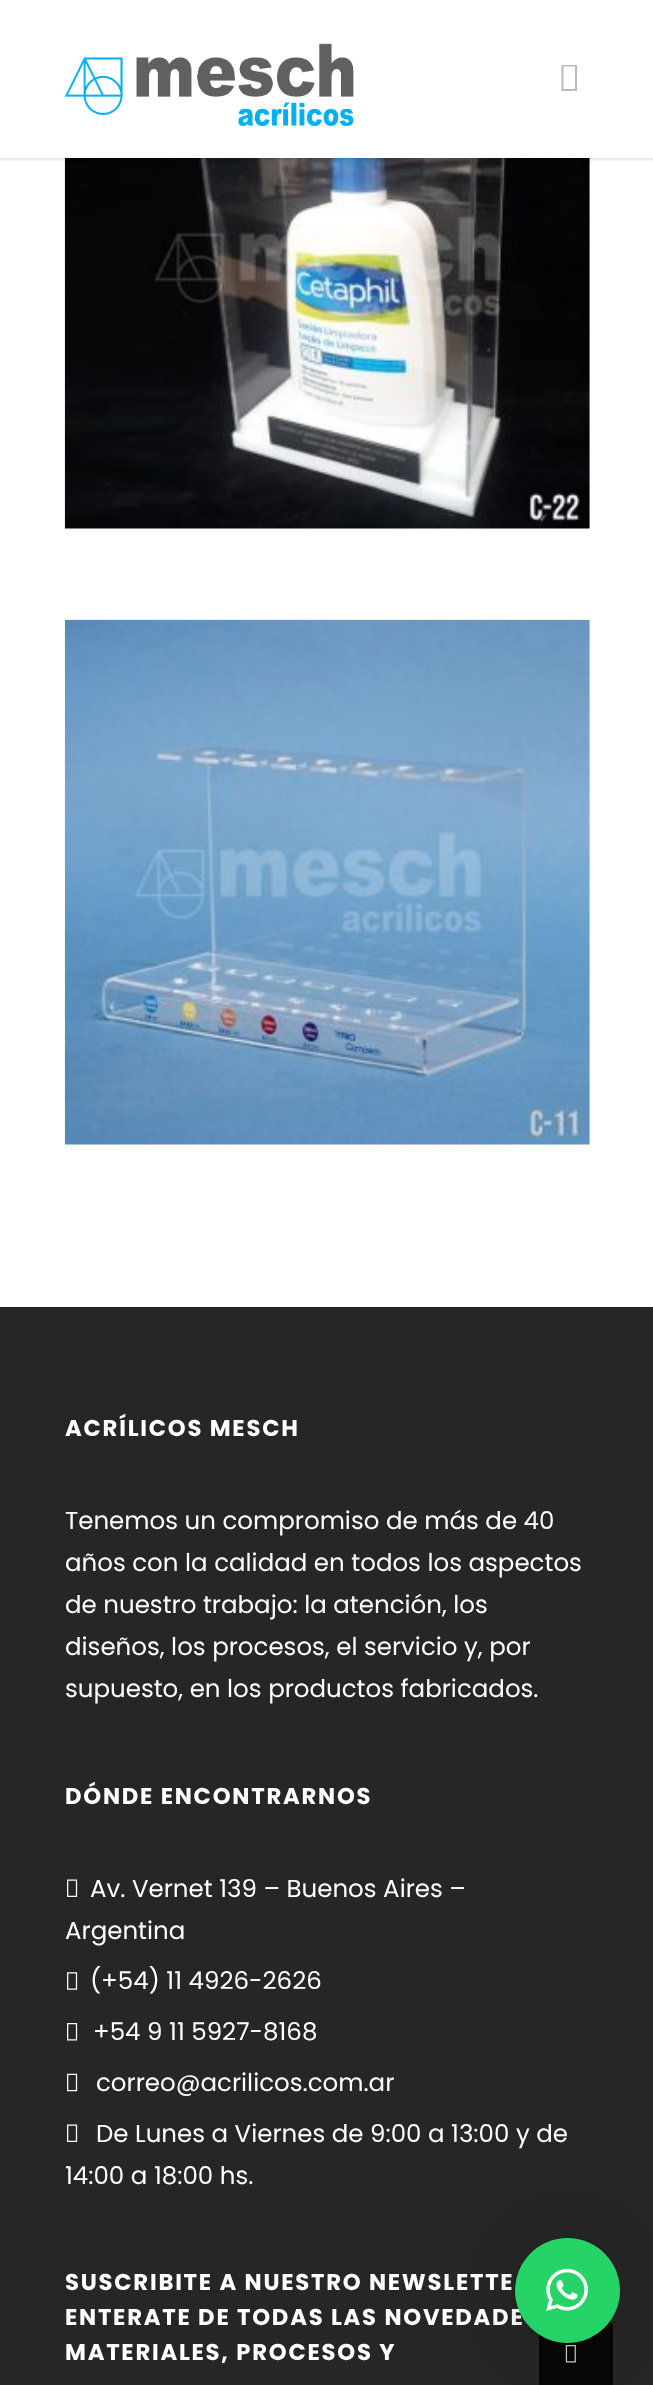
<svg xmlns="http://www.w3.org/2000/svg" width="653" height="2385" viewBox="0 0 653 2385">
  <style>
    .t1 { font: bold 22.75px Poppins; letter-spacing: 1.75px; fill: #fff; }
    .t2 { font: 24.5px Poppins; fill: #fff; }
  </style>
  <rect width="100%" height="100%" fill="#fff"/>
  <image x="64" y="158" width="526" height="371" href="images/2.png"/>
  <rect x="-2" y="-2" width="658" height="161" fill="#00000029" filter="blur(2px)"/>
  <rect x="0" y="0" width="653" height="158" fill="#fff"/>
  <image x="64" y="43" width="290" height="83" href="images/1.png"/>
  <path d="M561.5 91V65H577V91ZM563.5 89H575V66.5H563.5Z" fill="#bbb"/>
  <image x="64" y="619" width="526" height="526" href="images/3.png"/>
  <rect x="0" y="1307" width="653" height="1078" fill="#262626"/>
  <text x="65" y="1436" class="t1">ACRÍLICOS MESCH</text>
  <text x="65" y="1529" class="t2">Tenemos un compromiso de más de 40</text>
  <text x="65" y="1571" class="t2">años con la calidad en todos los aspectos</text>
  <text x="65" y="1613" class="t2">de nuestro trabajo: la atención, los</text>
  <text x="65" y="1655" class="t2">diseños, los procesos, el servicio y, por</text>
  <text x="65" y="1697" class="t2">supuesto, en los productos fabricados.</text>
  <text x="65" y="1804" class="t1">DÓNDE ENCONTRARNOS</text>
  <image x="67" y="1879" width="11" height="18" href="images/4.png"/>
  <text x="90" y="1897" class="t2">Av. Vernet 139 – Buenos Aires –</text>
  <text x="65" y="1939" class="t2">Argentina</text>
  <image x="67" y="1972" width="11" height="18" href="images/5.png"/>
  <text x="90" y="1989" class="t2">(+54) 11 4926-2626</text>
  <image x="67" y="2023" width="11" height="18" href="images/6.png"/>
  <text x="93" y="2040" class="t2">+54 9 11 5927-8168</text>
  <image x="67" y="2073" width="11" height="19" href="images/7.png"/>
  <text x="96" y="2091" class="t2">correo@acrilicos.com.ar</text>
  <image x="67" y="2124" width="11" height="18" href="images/4.png"/>
  <text x="96" y="2142" class="t2">De Lunes a Viernes de 9:00 a 13:00 y de</text>
  <text x="65" y="2184" class="t2">14:00 a 18:00 hs.</text>
  <text x="65" y="2290" class="t1">SUSCRIBITE A NUESTRO NEWSLETTE</text>
  <text x="65" y="2325" class="t1">ENTERATE DE TODAS LAS NOVEDADE</text>
  <text x="65" y="2360" class="t1">MATERIALES, PROCESOS Y</text>
  <path d="M544 2322H608C611 2322 613 2324 613 2327V2385H539V2327C539 2324 541 2322 544 2322Z" fill="#000000cc"/>
  <image x="565" y="2345" width="11" height="18" href="images/9.png"/>
  <rect x="515" y="2242" width="105" height="105" rx="52.5" fill="#00000029" filter="blur(28px)"/>
  <circle cx="567.5" cy="2290.5" r="52.5" fill="#25d366"/>
  <image x="546" y="2268" width="42" height="43" href="images/8.png"/>
</svg>
